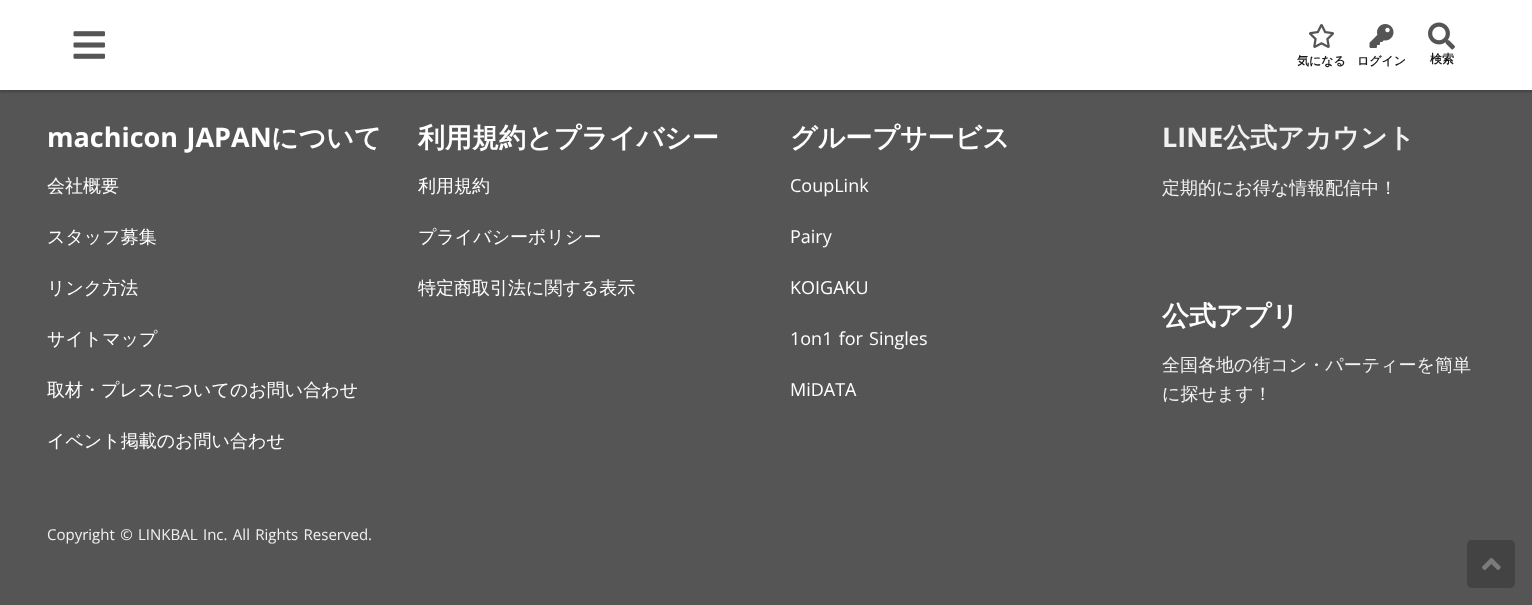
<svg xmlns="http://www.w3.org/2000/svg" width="1532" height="605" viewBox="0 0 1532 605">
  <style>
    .t1 { font: bold 12px WenQuanYi Zen Hei; fill: #1a1a1a; }
    .t2 { font: bold 27px Open Sans; fill: #fff; }
    .t3 { font: bold 27px WenQuanYi Zen Hei; fill: #fff; }
    .t4 { font: 500 18px WenQuanYi Zen Hei; fill: #fff; }
    .t5 { font: 18px Open Sans; fill: #fff; }
    .t6 { font: bold 27px Open Sans; fill: #f1f1f1; }
    .t7 { font: bold 27px WenQuanYi Zen Hei; fill: #f1f1f1; }
    .t8 { font: 500 18px WenQuanYi Zen Hei; fill: #f1f1f1; }
    .t9 { font: 15px Open Sans; fill: #f1f1f1; }
  </style>
  <rect width="100%" height="100%" fill="#555"/>
  <rect x="0" y="2" width="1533" height="90" fill="#00000033" filter="blur(1px)"/>
  <rect x="0" y="0" width="1532" height="90" fill="#fff"/>
  <image x="73" y="31" width="32" height="28" href="images/1.png"/>
  <image x="1309" y="24" width="25" height="24" href="images/2.png"/>
  <text x="1297" y="65" class="t1">気になる</text>
  <image x="1369" y="24" width="25" height="24" href="images/3.png"/>
  <text x="1357" y="65" class="t1">ログイン</text>
  <image x="1428" y="22" width="27" height="28" href="images/4.png"/>
  <text x="1430" y="63" class="t1">検索</text>
  <text x="47" y="147" word-spacing="1.5" class="t2">machicon JAPAN</text>
  <text x="271" y="147" class="t3">について</text>
  <text x="47" y="192" class="t4">会社概要</text>
  <text x="47" y="243" class="t4">スタッフ募集</text>
  <text x="47" y="294" class="t4">リンク方法</text>
  <text x="47" y="345" class="t4">サイトマップ</text>
  <text x="47" y="396" class="t4">取材・プレスについてのお問い合わせ</text>
  <text x="47" y="447" class="t4">イベント掲載のお問い合わせ</text>
  <text x="418" y="147" class="t3">利用規約とプライバシー</text>
  <text x="418" y="192" class="t4">利用規約</text>
  <text x="418" y="243" class="t4">プライバシーポリシー</text>
  <text x="418" y="294" class="t4">特定商取引法に関する表示</text>
  <text x="790" y="147" class="t3">グループサービス</text>
  <text x="790" y="192" class="t5">CoupLink</text>
  <text x="790" y="243" class="t5">Pairy</text>
  <text x="790" y="294" class="t5">KOIGAKU</text>
  <text x="790" y="345" word-spacing="1.5" class="t5">1on1 for Singles</text>
  <text x="790" y="396" class="t5">MiDATA</text>
  <text x="1162" y="147" class="t6">LINE</text>
  <text x="1223" y="147" class="t7">公式アカウント</text>
  <text x="1162" y="194" class="t8">定期的にお得な情報配信中！</text>
  <text x="1162" y="325" class="t3">公式アプリ</text>
  <text x="1162" y="371" class="t8">全国各地の街コン・パーティーを簡単</text>
  <text x="1162" y="400" class="t8">に探せます！</text>
  <text x="47" y="540" word-spacing="1.5" class="t9">Copyright © LINKBAL Inc. All Rights Reserved.</text>
  <rect x="1467" y="540" width="48" height="48" rx="5" fill="#434343"/>
  <image x="1482" y="558" width="19" height="12" href="images/5.png"/>
</svg>
